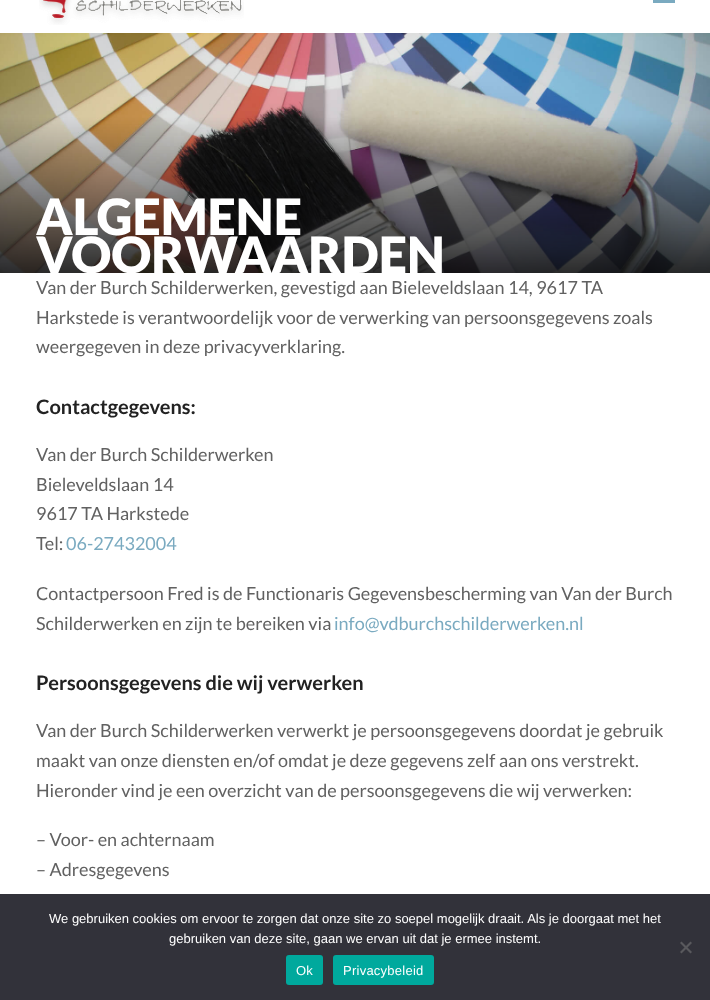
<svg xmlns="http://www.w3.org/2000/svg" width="710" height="1000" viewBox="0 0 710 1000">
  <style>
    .t1 { font: 900 50px Lato; fill: #fff; }
    .t2 { font: 18px Lato; fill: #616161; }
    .t3 { font: bold 20px Lato; fill: #222; }
    .t4 { font: 18px Lato; fill: #7aaac0; }
    .t5 { font: 13px Liberation Sans; fill: #fff; }
    .t6 { font: 13px Liberation Sans; letter-spacing: 0.25px; fill: #fff; }
  </style>
  <rect width="100%" height="100%" fill="#fff"/>
  <image x="39" y="0" width="205" height="25" href="images/1.png"/>
  <rect x="653" y="0" width="22" height="3" fill="#7aaac0"/>
  <image x="0" y="33" width="710" height="240" href="images/2.png"/>
  <text x="36" y="235" class="t1">ALGEMENE</text>
  <text x="36" y="273" class="t1">VOORWAARDEN</text>
  <text x="36" y="294" class="t2">Van der Burch Schilderwerken, gevestigd aan Bieleveldslaan 14, 9617 TA</text>
  <text x="36" y="324" class="t2">Harkstede is verantwoordelijk voor de verwerking van persoonsgegevens zoals</text>
  <text x="36" y="353" class="t2">weergegeven in deze privacyverklaring.</text>
  <text x="36" y="414" class="t3">Contactgegevens:</text>
  <text x="36" y="461" class="t2">Van der Burch Schilderwerken</text>
  <text x="36" y="491" class="t2">Bieleveldslaan 14</text>
  <text x="36" y="520" class="t2">9617 TA Harkstede</text>
  <text x="36" y="550" class="t2">Tel:</text>
  <text x="66" y="550" class="t4">06-27432004</text>
  <text x="36" y="600" class="t2">Contactpersoon Fred is de Functionaris Gegevensbescherming van Van der Burch</text>
  <text x="36" y="630" class="t2">Schilderwerken en zijn te bereiken via</text>
  <text x="334" y="630" class="t4">info@vdburchschilderwerken.nl</text>
  <text x="36" y="690" class="t3">Persoonsgegevens die wij verwerken</text>
  <text x="36" y="737" class="t2">Van der Burch Schilderwerken verwerkt je persoonsgegevens doordat je gebruik</text>
  <text x="36" y="767" class="t2">maakt van onze diensten en/of omdat je deze gegevens zelf aan ons verstrekt.</text>
  <text x="36" y="797" class="t2">Hieronder vind je een overzicht van de persoonsgegevens die wij verwerken:</text>
  <text x="36" y="846" class="t2">– Voor- en achternaam</text>
  <text x="36" y="876" class="t2">– Adresgegevens</text>
  <rect x="0" y="894" width="710" height="106" fill="#32323a"/>
  <text x="49" y="923" class="t5">We gebruiken cookies om ervoor te zorgen dat onze site zo soepel mogelijk draait. Als je doorgaat met het</text>
  <text x="169" y="943" class="t5">gebruiken van deze site, gaan we ervan uit dat je ermee instemt.</text>
  <path d="M690.5 941.5L692 943L681.5 953.5L680 952Z" fill="#59595d"/>
  <path d="M680 943L681.5 941.5L692 952L690.5 953.5Z" fill="#59595d"/>
  <rect x="286" y="955" width="37" height="30" rx="3" fill="#00a99d"/>
  <text x="296" y="975" class="t6">Ok</text>
  <rect x="333" y="955" width="101" height="30" rx="3" fill="#00a99d"/>
  <text x="343" y="975" class="t6">Privacybeleid</text>
</svg>
